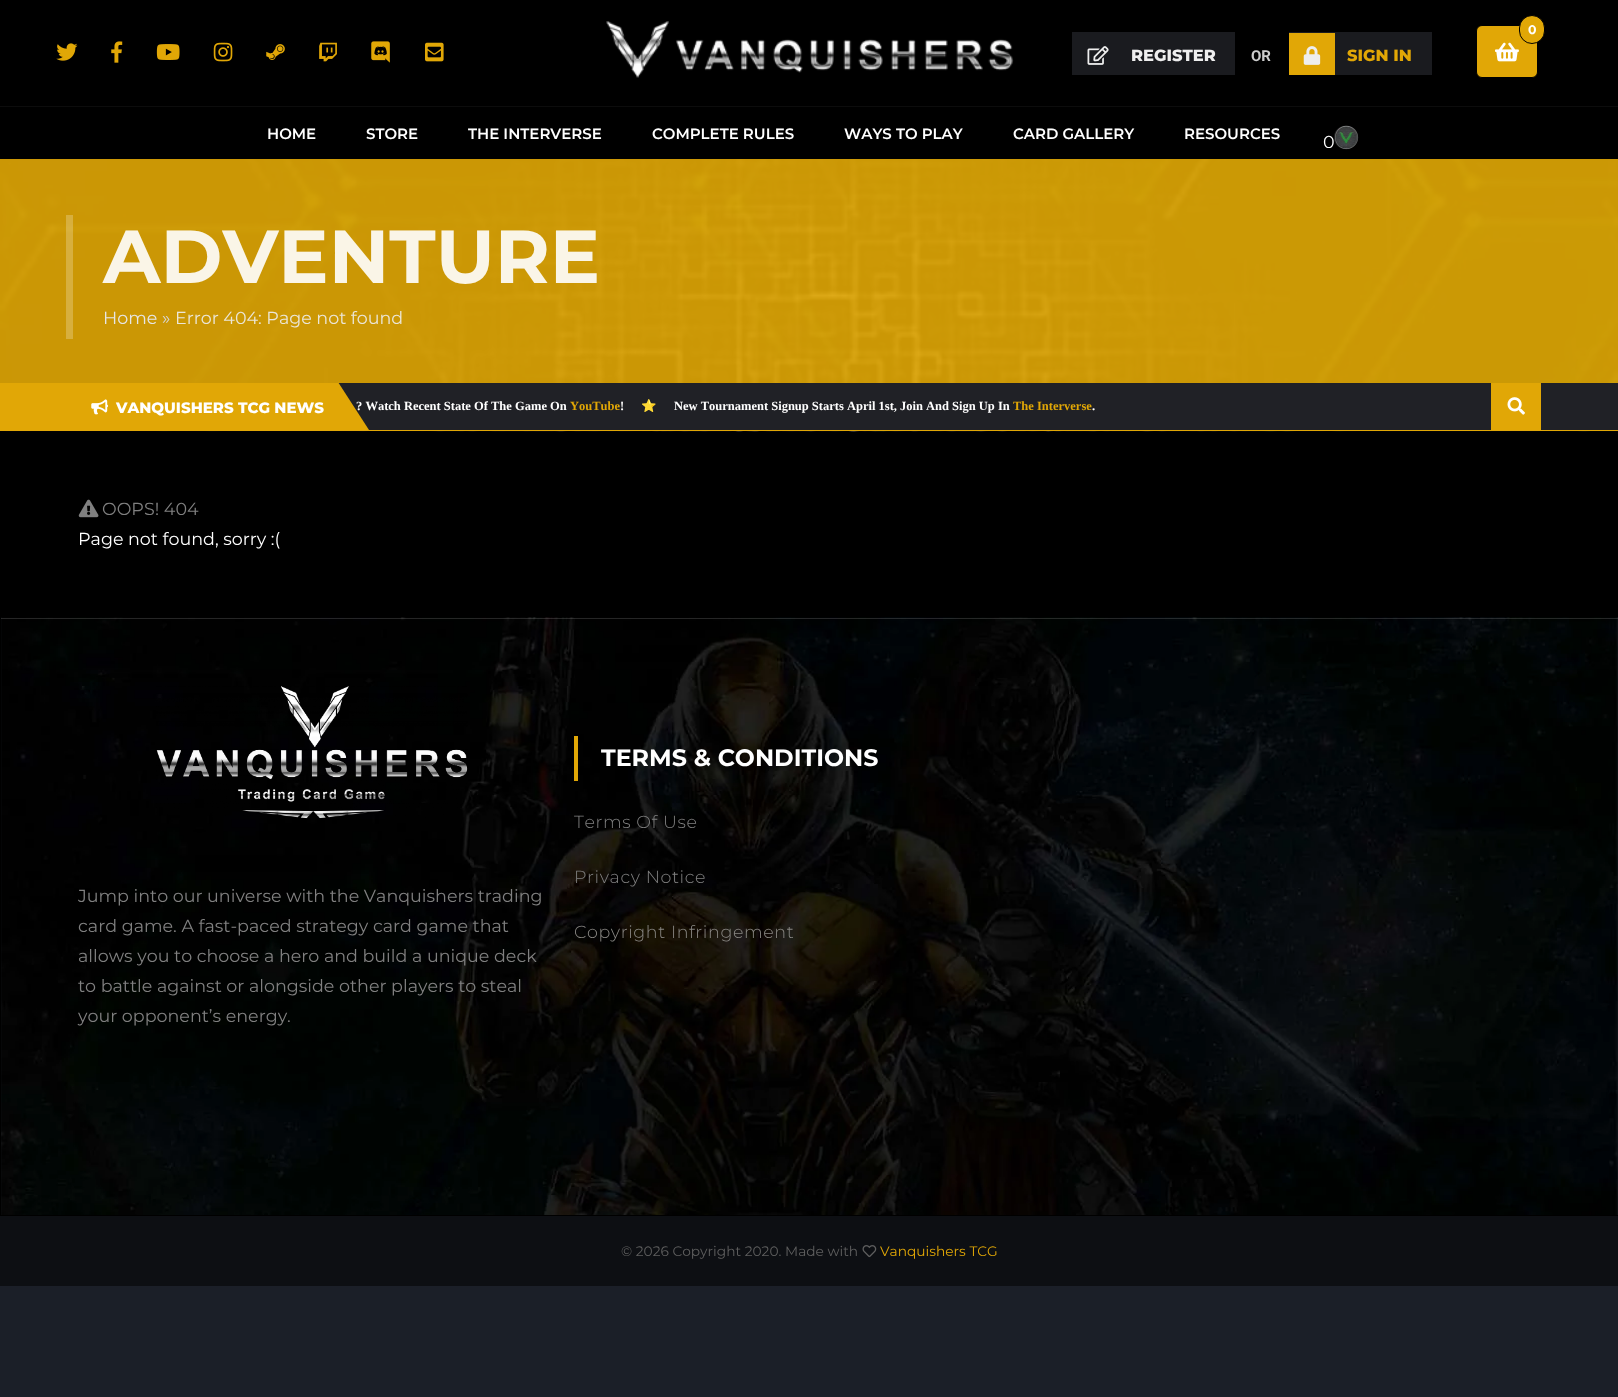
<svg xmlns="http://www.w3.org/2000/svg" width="1618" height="1397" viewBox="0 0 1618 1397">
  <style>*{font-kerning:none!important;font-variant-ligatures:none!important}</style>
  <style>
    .t1 { font: 100 12.5px 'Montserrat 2'; fill: #fff; }
    .t2 { font: 100 16.25px 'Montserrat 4'; fill: #eee; }
    .t3 { font: bold 15px Roboto; fill: #ccc; }
    .t4 { font: 100 16.25px 'Montserrat 4'; fill: #e1a706; }
    .t5 { font: 100 15px 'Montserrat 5'; fill: #fff; }
    .t6 { font: 100 17.5px Montserrat; fill: #fff; }
    .t7 { font: 100 75px 'Montserrat 2'; fill: #faf5e7; }
    .t8 { font: 100 17.5px Montserrat; fill: #e6e6e6; }
    .t9 { font: 100 17.5px Montserrat; fill: #d7d7d7; }
    .t10 { font: 100 17.5px Montserrat; fill: #ebe6d8; }
    .t11 { font: bold 12.5px Liberation Serif; fill: #fff; }
    .t12 { font: bold 12.5px Liberation Serif; fill: #e1a706; }
    .t13 { font: bold 12.5px Noto Color Emoji; fill: #fff; }
    .t14 { font: 100 15px 'Montserrat 4'; fill: #fff; }
    .t15 { font: 100 17.5px Montserrat; fill: #808080; }
    .t16 { font: 100 23.75px 'Montserrat 2'; fill: #fff; }
    .t17 { font: 100 17.5px 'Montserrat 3'; letter-spacing: 0.6px; fill: #808080; }
    .t18 { font: 100 17.5px 'Montserrat 3'; letter-spacing: 0.6px; fill: #898783; }
    .t19 { font: 100 13.75px Montserrat; fill: #5f5f5f; }
    .t20 { font: 100 13.75px Montserrat; fill: #e1a706; }
  </style>
  <rect width="100%" height="100%" fill="#1b1f28"/>
  <rect x="0" y="431" width="1618" height="185" fill="#000"/>
  <image x="0" y="159" width="1618" height="273" href="images/1.png"/>
  <rect x="0" y="0" width="1618" height="106" fill="#000"/>
  <image x="56" y="43" width="22" height="18" href="images/2.png"/>
  <image x="111" y="41" width="12" height="22" href="images/3.png"/>
  <image x="156" y="44" width="24" height="16" href="images/4.png"/>
  <image x="213" y="42" width="20" height="20" href="images/5.png"/>
  <image x="266" y="44" width="19" height="16" href="images/6.png"/>
  <image x="319" y="42" width="18" height="20" href="images/7.png"/>
  <image x="371" y="41" width="19" height="22" href="images/8.png"/>
  <image x="425" y="42" width="19" height="20" href="images/9.png"/>
  <image x="606" y="21" width="408" height="57" href="images/10.png"/>
  <rect x="1476.5" y="25.5" width="61" height="52" rx="5.5" fill="#e1a706" stroke="#000"/>
  <rect x="1519.5" y="15.5" width="25" height="28" rx="12.5" fill="#e1a706" stroke="#000"/>
  <text x="1528" y="34" class="t1">0</text>
  <image x="1495" y="42" width="24" height="20" href="images/11.png"/>
  <rect x="1072" y="32" width="163" height="43" fill="#1a1b1f"/>
  <image x="1087" y="46" width="22" height="19" href="images/12.png"/>
  <text x="1131" y="61" class="t2">REGISTER</text>
  <text x="1251" y="61" class="t3">OR</text>
  <rect x="1289" y="32" width="143" height="43" fill="#1a1b1f"/>
  <rect x="1289" y="33" width="46" height="42" fill="#e1a706"/>
  <image x="1303" y="46" width="18" height="19" href="images/13.png"/>
  <text x="1347" y="61" class="t4">SIGN IN</text>
  <rect x="0" y="107" width="1618" height="52" fill="#000"/>
  <rect x="0" y="106" width="1618" height="1" fill="#0c0c0c"/>
  <text x="267" y="139" class="t5">HOME</text>
  <text x="366" y="139" class="t5">STORE</text>
  <text x="468" y="139" class="t5">THE INTERVERSE</text>
  <text x="652" y="139" class="t5">COMPLETE RULES</text>
  <text x="844" y="139" class="t5">WAYS TO PLAY</text>
  <text x="1013" y="139" class="t5">CARD GALLERY</text>
  <text x="1184" y="139" class="t5">RESOURCES</text>
  <text x="1323" y="148" class="t6">0</text>
  <image x="1334" y="125" width="25" height="25" href="images/14.png"/>
  <rect x="0" y="159" width="1618" height="224" fill="#e1a706e6"/>
  <rect x="66" y="215" width="7" height="124" fill="#ffffff3b"/>
  <text x="103" y="283" class="t7">ADVENTURE</text>
  <text x="103" y="324" class="t8">Home</text>
  <text x="162" y="324" class="t9">»</text>
  <text x="175" y="324" class="t10">Error 404: Page not found</text>
  <rect x="338" y="383" width="1280" height="47" fill="#202126"/>
  <rect x="0" y="430" width="1618" height="1" fill="#e1a706"/>
  <rect x="0" y="383" width="338" height="47" fill="#e1a706"/>
  <text x="356" y="410" class="t11">? Watch Recent State Of The Game On</text>
  <text x="570" y="410" class="t12">YouTube</text>
  <text x="620" y="410" class="t11">!</text>
  <text x="641" y="410" class="t13">⭐</text>
  <text x="674" y="410" class="t11">New Tournament Signup Starts April 1st, Join</text>
  <text x="926" y="410" class="t11">And Sign Up In</text>
  <text x="1013" y="410" class="t12">The Interverse</text>
  <text x="1092" y="410" class="t11">.</text>
  <rect x="1491" y="383" width="50" height="47" fill="#e1a706"/>
  <image x="1507" y="397" width="18" height="18" href="images/15.png"/>
  <image x="91" y="399" width="18" height="16" href="images/16.png"/>
  <text x="116" y="413" class="t14">VANQUISHERS TCG NEWS</text>
  <path d="M369 430H338V382Z" fill="#e1a706"/>
  <image x="78" y="499" width="21" height="19" href="images/17.png"/>
  <text x="102" y="515" class="t15">OOPS! 404</text>
  <text x="78" y="545" class="t6">Page not found, sorry :(</text>
  <rect x="1" y="617" width="1617" height="598" fill="#12151b"/>
  <image x="1" y="617" width="1617" height="598" href="images/18.png"/>
  <rect x="1" y="618" width="1617" height="1" fill="#ffffff26"/>
  <rect x="0.5" y="616.5" width="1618" height="599" fill="none" stroke="#000"/>
  <rect x="574" y="736" width="4" height="45" fill="#e1a706"/>
  <text x="601" y="766" class="t16">TERMS &amp; CONDITIONS</text>
  <text x="574" y="828" class="t17">Terms Of Use</text>
  <text x="574" y="883" class="t17">Privacy Notice</text>
  <text x="574" y="938" class="t18">Copyright Infringement</text>
  <image x="156" y="686" width="312" height="133" href="images/19.png"/>
  <text x="78" y="902" class="t15">Jump into our universe with the Vanquishers trading</text>
  <text x="78" y="932" class="t15">card game. A fast-paced strategy card game that</text>
  <text x="78" y="962" class="t15">allows you to choose a hero and build a unique deck</text>
  <text x="78" y="992" class="t15">to battle against or alongside other players to steal</text>
  <text x="78" y="1022" class="t15">your opponent’s energy.</text>
  <rect x="0" y="1216" width="1618" height="70" fill="#0d0f13"/>
  <text x="621" y="1256" class="t19">© 2026 Copyright 2020. Made with</text>
  <image x="862" y="1245" width="15" height="13" href="images/20.png"/>
  <text x="880" y="1256" class="t20">Vanquishers TCG</text>
</svg>
